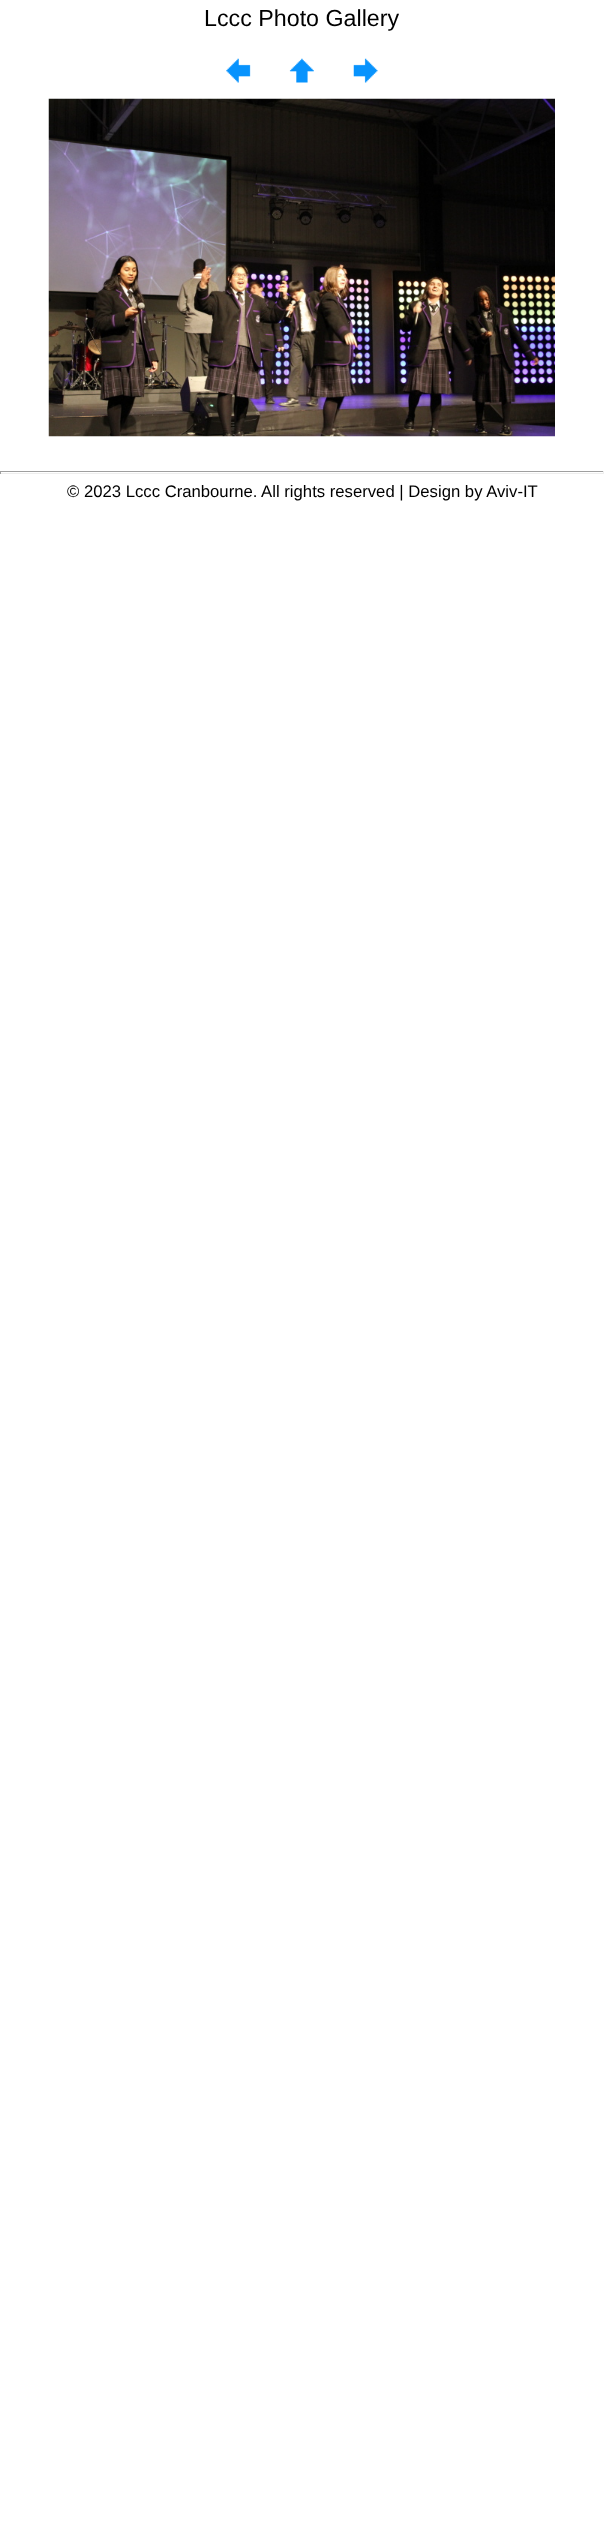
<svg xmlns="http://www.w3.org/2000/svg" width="613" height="2544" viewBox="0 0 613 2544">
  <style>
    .t1 { font: 23.25px Liberation Sans; fill: #000; }
    .t2 { font: 16.7px Liberation Sans; fill: #000; }
  </style>
  <rect width="100%" height="100%" fill="#fff"/>
  <text x="204" y="26" class="t1">Lccc Photo Gallery</text>
  <image x="226" y="58" width="25" height="25" href="images/1.png"/>
  <image x="289" y="58" width="25" height="25" href="images/2.png"/>
  <image x="353" y="58" width="25" height="25" href="images/3.png"/>
  <image x="48" y="98" width="507" height="339" href="images/4.png"/>
  <rect x="0" y="471" width="604" height="1" fill="#9f9f9f"/>
  <rect x="603" y="471" width="1" height="3" fill="#eee"/>
  <rect x="0" y="473" width="604" height="1" fill="#eee"/>
  <rect x="0" y="471" width="1" height="3" fill="#9f9f9f"/>
  <text x="67" y="497" class="t2">© 2023 Lccc Cranbourne. All rights reserved | Design by Aviv-IT</text>
</svg>
